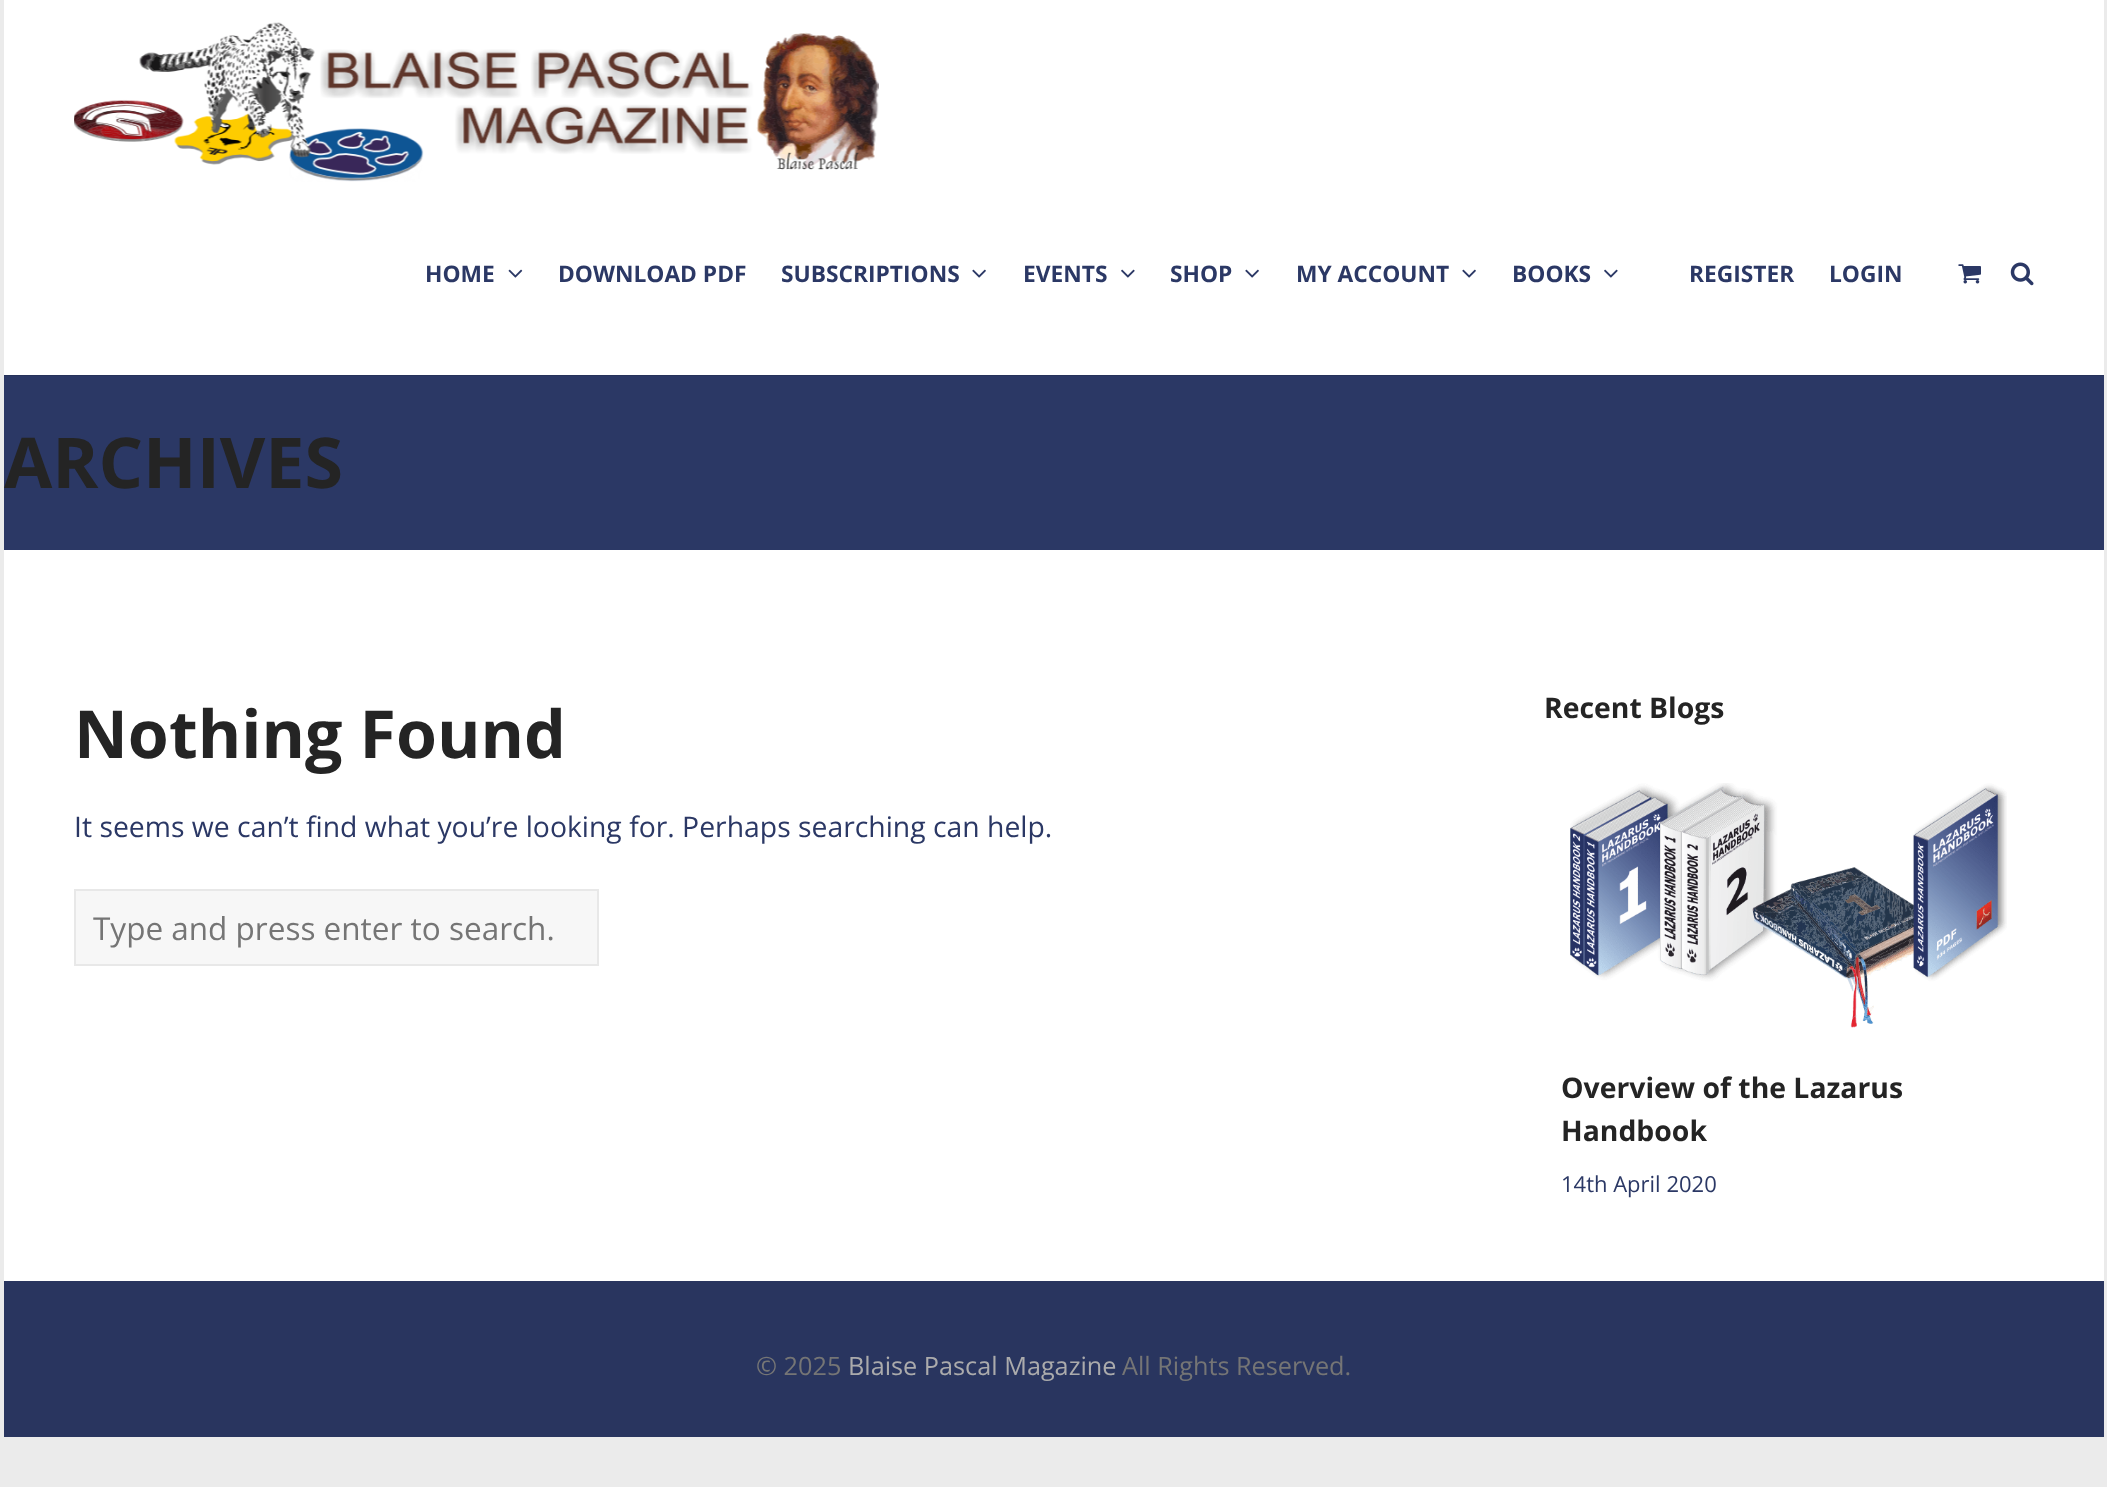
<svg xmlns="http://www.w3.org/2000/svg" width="2107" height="1487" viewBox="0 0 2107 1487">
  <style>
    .t1 { font: bold 22.75px Open Sans; fill: #2b3865; }
    .t2 { font: bold 70px Open Sans; fill: #242424; }
    .t3 { font: bold 66.25px Open Sans; fill: #242424; }
    .t4 { font: 28.35px Open Sans; fill: #2b3865; }
    .t5 { font: 31.5px Open Sans; fill: #757575; }
    .t6 { font: bold 28.35px Open Sans; fill: #242424; }
    .t7 { font: 22px Open Sans; fill: #2b3865; }
    .t8 { font: 25.25px Open Sans; fill: #757575; }
    .t9 { font: 25.25px Open Sans; fill: #ababac; }
  </style>
  <rect width="100%" height="100%" fill="#ebebeb"/>
  <rect x="4" y="550" width="2100" height="731" fill="#fff"/>
  <rect x="4" y="375" width="2100" height="175" fill="#2b3865"/>
  <path d="M4 374V376H2104V0V374Z" fill="#0000001a"/>
  <rect x="4" y="0" width="2100" height="375" fill="#fff"/>
  <image x="74" y="22" width="805" height="160" href="images/1.png"/>
  <text x="425" y="282" class="t1">HOME</text>
  <image x="508" y="269" width="15" height="9" href="images/2.png"/>
  <text x="558" y="282" class="t1">DOWNLOAD PDF</text>
  <text x="781" y="282" class="t1">SUBSCRIPTIONS</text>
  <image x="972" y="269" width="14" height="9" href="images/3.png"/>
  <text x="1023" y="282" class="t1">EVENTS</text>
  <image x="1121" y="269" width="14" height="9" href="images/4.png"/>
  <text x="1170" y="282" class="t1">SHOP</text>
  <image x="1245" y="269" width="14" height="9" href="images/3.png"/>
  <text x="1296" y="282" class="t1">MY ACCOUNT</text>
  <image x="1462" y="269" width="14" height="9" href="images/3.png"/>
  <text x="1512" y="282" class="t1">BOOKS</text>
  <image x="1604" y="269" width="14" height="9" href="images/4.png"/>
  <text x="1689" y="282" class="t1">REGISTER</text>
  <text x="1829" y="282" class="t1">LOGIN</text>
  <image x="1958" y="264" width="23" height="20" href="images/5.png"/>
  <image x="2010" y="262" width="24" height="24" href="images/6.png"/>
  <text x="4" y="488" class="t2">ARCHIVES</text>
  <text x="74" y="758" class="t3">Nothing Found</text>
  <text x="74" y="837" class="t4">It seems we can’t find what you’re looking for. Perhaps searching can help.</text>
  <rect x="75" y="890" width="523" height="75" fill="#f7f7f7" stroke="#e8e8e8" stroke-width="2"/>
  <text x="93" y="940" class="t5">Type and press enter to search.</text>
  <text x="1544" y="718" class="t6">Recent Blogs</text>
  <image x="1570" y="783" width="437" height="245" href="images/7.png"/>
  <text x="1561" y="1098" class="t6">Overview of the Lazarus</text>
  <text x="1561" y="1141" class="t6">Handbook</text>
  <text x="1561" y="1192" class="t7">14th April 2020</text>
  <rect x="4" y="1281" width="2100" height="156" fill="#29355f"/>
  <text x="756" y="1375" class="t8">© 2025</text>
  <text x="848" y="1375" class="t9">Blaise Pascal Magazine</text>
  <text x="1122" y="1375" class="t8">All Rights Reserved.</text>
</svg>
